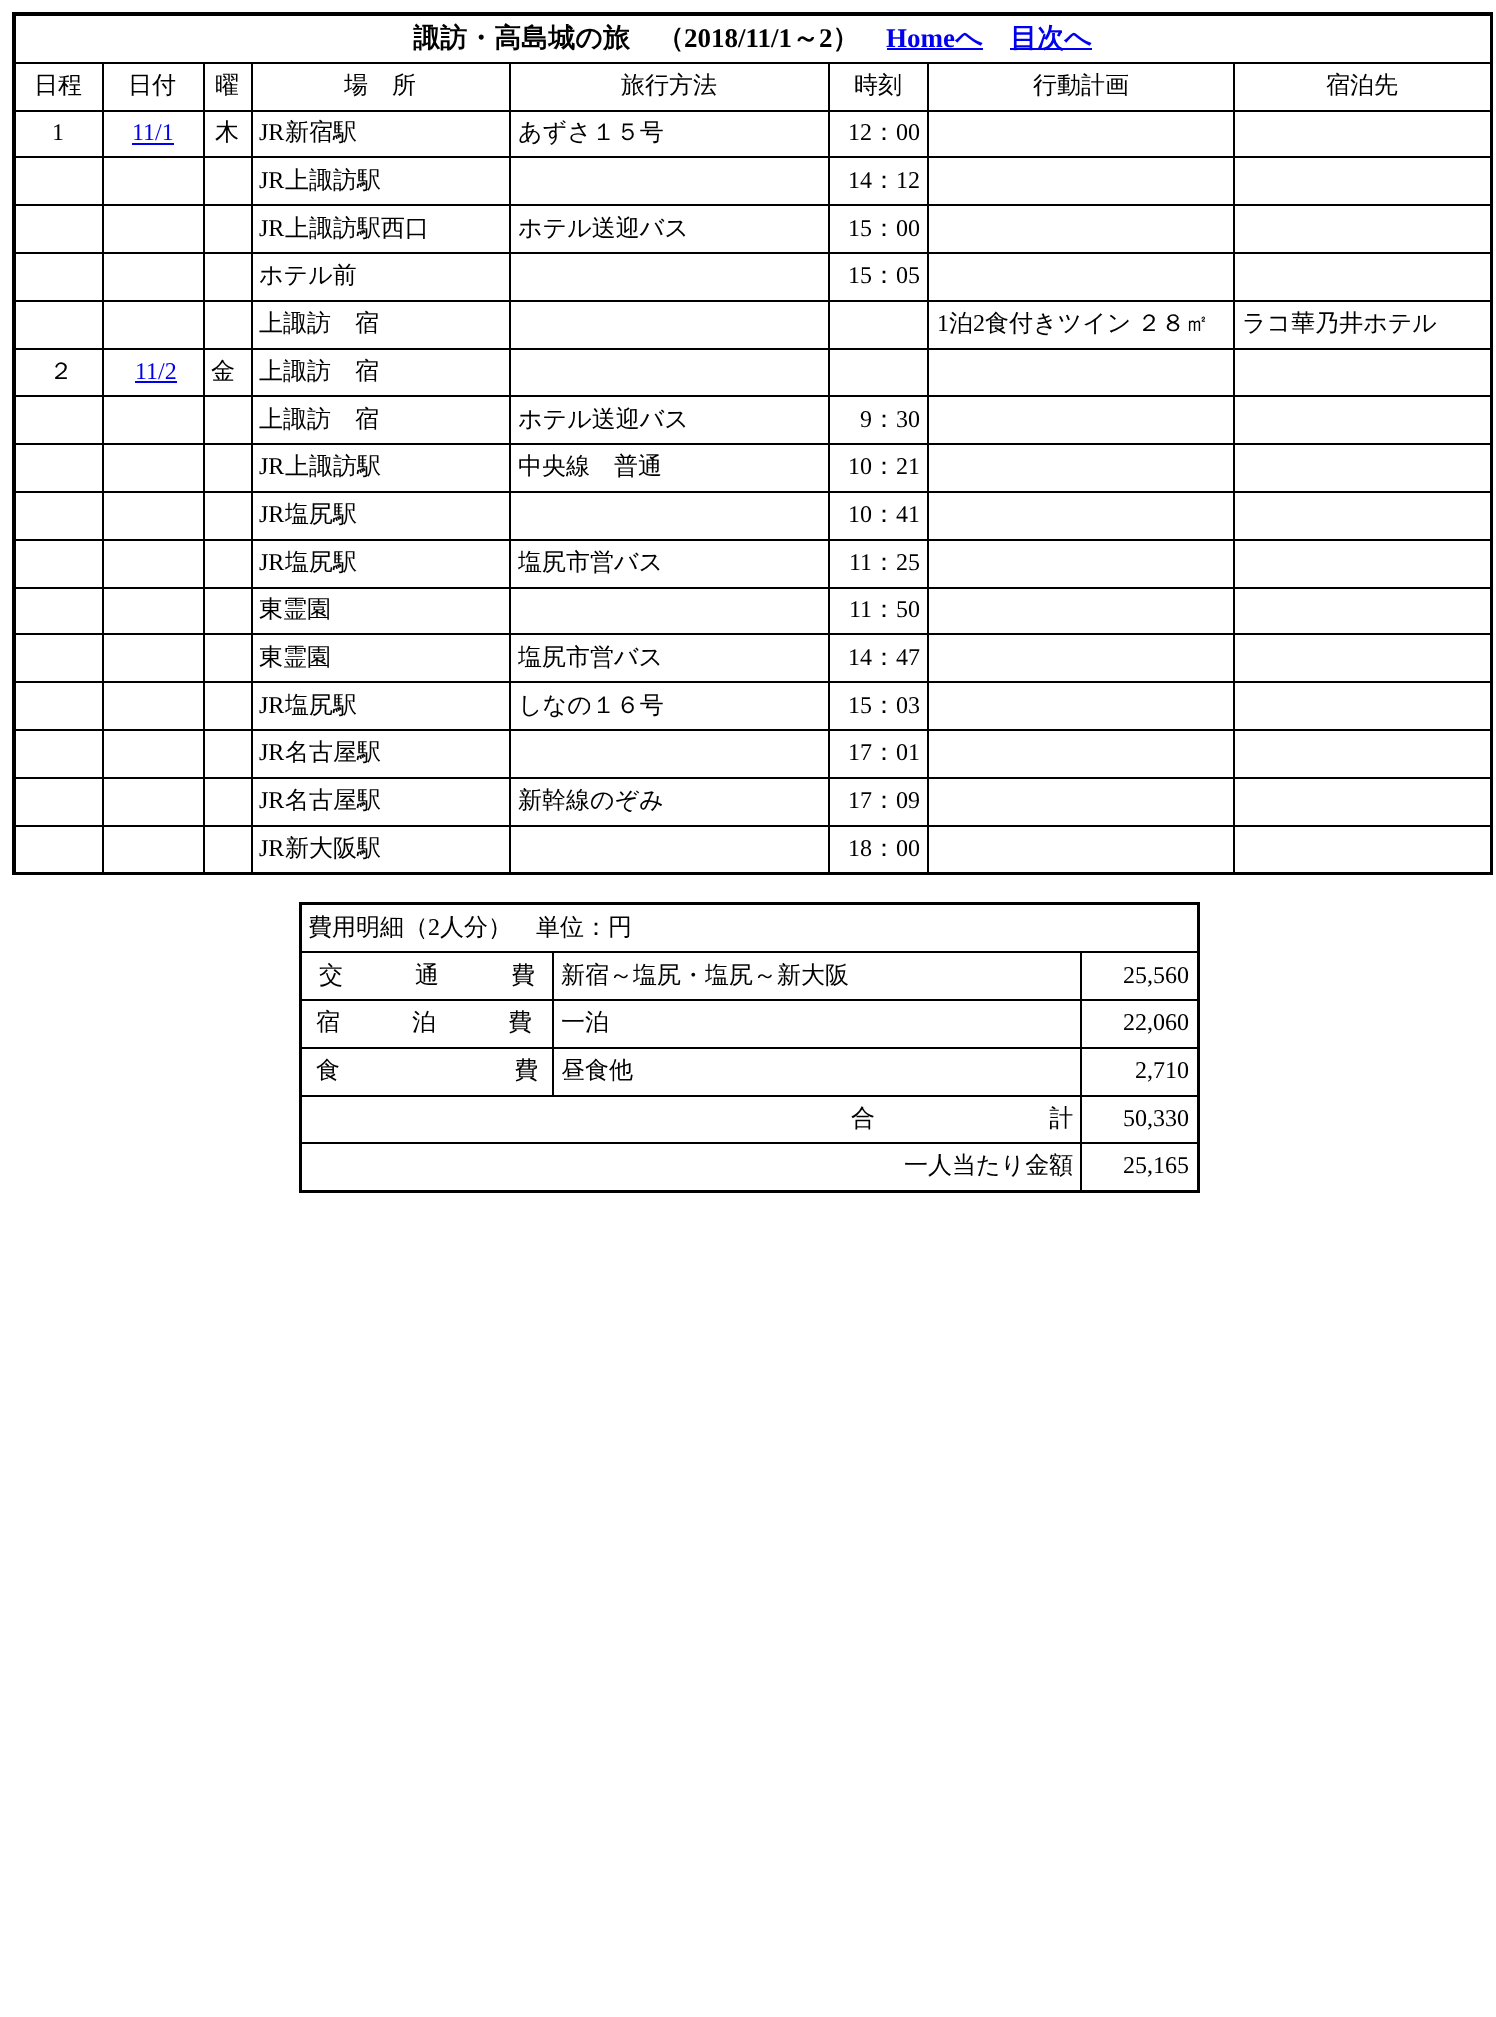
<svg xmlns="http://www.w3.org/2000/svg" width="1496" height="2017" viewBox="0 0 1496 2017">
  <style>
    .t1 { font: bold 27px WenQuanYi Zen Hei; fill: #000; }
    .t2 { font: bold 27px Liberation Serif; fill: #000; }
    .t3 { font: bold 27px Liberation Serif; fill: #00e; }
    .t4 { font: bold 27px WenQuanYi Zen Hei; fill: #00e; }
    .t5 { font: 500 24px WenQuanYi Zen Hei; fill: #000; }
    .t6 { font: 24px Liberation Serif; fill: #000; }
    .t7 { font: 24px Liberation Serif; fill: #00e; }
  </style>
  <rect width="100%" height="100%" fill="#fff"/>
  <rect x="14" y="15" width="1479" height="1" fill="#000"/>
  <rect x="1233" y="62" width="260" height="2" fill="#000"/>
  <rect x="1233" y="110" width="260" height="2" fill="#000"/>
  <rect x="1233" y="156" width="260" height="2" fill="#000"/>
  <rect x="1233" y="204" width="260" height="2" fill="#000"/>
  <rect x="1233" y="252" width="260" height="2" fill="#000"/>
  <rect x="1233" y="300" width="260" height="2" fill="#000"/>
  <rect x="1233" y="348" width="260" height="2" fill="#000"/>
  <rect x="1233" y="395" width="260" height="2" fill="#000"/>
  <rect x="1233" y="443" width="260" height="2" fill="#000"/>
  <rect x="1233" y="491" width="260" height="2" fill="#000"/>
  <rect x="1233" y="539" width="260" height="2" fill="#000"/>
  <rect x="1233" y="587" width="260" height="2" fill="#000"/>
  <rect x="1233" y="633" width="260" height="2" fill="#000"/>
  <rect x="1233" y="681" width="260" height="2" fill="#000"/>
  <rect x="1233" y="729" width="260" height="2" fill="#000"/>
  <rect x="1233" y="777" width="260" height="2" fill="#000"/>
  <rect x="1233" y="825" width="260" height="2" fill="#000"/>
  <rect x="1233" y="825" width="2" height="50" fill="#000"/>
  <rect x="927" y="825" width="308" height="2" fill="#000"/>
  <rect x="1233" y="777" width="2" height="50" fill="#000"/>
  <rect x="927" y="777" width="308" height="2" fill="#000"/>
  <rect x="1233" y="729" width="2" height="50" fill="#000"/>
  <rect x="927" y="729" width="308" height="2" fill="#000"/>
  <rect x="1233" y="681" width="2" height="50" fill="#000"/>
  <rect x="927" y="681" width="308" height="2" fill="#000"/>
  <rect x="1233" y="633" width="2" height="50" fill="#000"/>
  <rect x="927" y="633" width="308" height="2" fill="#000"/>
  <rect x="1233" y="587" width="2" height="48" fill="#000"/>
  <rect x="927" y="587" width="308" height="2" fill="#000"/>
  <rect x="1233" y="539" width="2" height="49" fill="#000"/>
  <rect x="927" y="539" width="308" height="2" fill="#000"/>
  <rect x="1233" y="491" width="2" height="49" fill="#000"/>
  <rect x="927" y="491" width="308" height="2" fill="#000"/>
  <rect x="1233" y="443" width="2" height="49" fill="#000"/>
  <rect x="927" y="443" width="308" height="2" fill="#000"/>
  <rect x="1233" y="395" width="2" height="49" fill="#000"/>
  <rect x="927" y="395" width="308" height="2" fill="#000"/>
  <rect x="1233" y="348" width="2" height="48" fill="#000"/>
  <rect x="927" y="348" width="308" height="2" fill="#000"/>
  <rect x="1233" y="300" width="2" height="50" fill="#000"/>
  <rect x="927" y="300" width="308" height="2" fill="#000"/>
  <rect x="1233" y="252" width="2" height="50" fill="#000"/>
  <rect x="927" y="252" width="308" height="2" fill="#000"/>
  <rect x="1233" y="204" width="2" height="50" fill="#000"/>
  <rect x="927" y="204" width="308" height="2" fill="#000"/>
  <rect x="1233" y="156" width="2" height="50" fill="#000"/>
  <rect x="927" y="156" width="308" height="2" fill="#000"/>
  <rect x="1233" y="110" width="2" height="48" fill="#000"/>
  <rect x="927" y="110" width="308" height="2" fill="#000"/>
  <rect x="1233" y="62" width="2" height="49" fill="#000"/>
  <rect x="927" y="62" width="308" height="2" fill="#000"/>
  <rect x="927" y="825" width="2" height="50" fill="#000"/>
  <rect x="828" y="825" width="101" height="2" fill="#000"/>
  <rect x="927" y="777" width="2" height="50" fill="#000"/>
  <rect x="828" y="777" width="101" height="2" fill="#000"/>
  <rect x="927" y="729" width="2" height="50" fill="#000"/>
  <rect x="828" y="729" width="101" height="2" fill="#000"/>
  <rect x="927" y="681" width="2" height="50" fill="#000"/>
  <rect x="828" y="681" width="101" height="2" fill="#000"/>
  <rect x="927" y="633" width="2" height="50" fill="#000"/>
  <rect x="828" y="633" width="101" height="2" fill="#000"/>
  <rect x="927" y="587" width="2" height="48" fill="#000"/>
  <rect x="828" y="587" width="101" height="2" fill="#000"/>
  <rect x="927" y="539" width="2" height="49" fill="#000"/>
  <rect x="828" y="539" width="101" height="2" fill="#000"/>
  <rect x="927" y="491" width="2" height="49" fill="#000"/>
  <rect x="828" y="491" width="101" height="2" fill="#000"/>
  <rect x="927" y="443" width="2" height="49" fill="#000"/>
  <rect x="828" y="443" width="101" height="2" fill="#000"/>
  <rect x="927" y="395" width="2" height="49" fill="#000"/>
  <rect x="828" y="395" width="101" height="2" fill="#000"/>
  <rect x="927" y="348" width="2" height="48" fill="#000"/>
  <rect x="828" y="348" width="101" height="2" fill="#000"/>
  <rect x="927" y="300" width="2" height="50" fill="#000"/>
  <rect x="828" y="300" width="101" height="2" fill="#000"/>
  <rect x="927" y="252" width="2" height="50" fill="#000"/>
  <rect x="828" y="252" width="101" height="2" fill="#000"/>
  <rect x="927" y="204" width="2" height="50" fill="#000"/>
  <rect x="828" y="204" width="101" height="2" fill="#000"/>
  <rect x="927" y="156" width="2" height="50" fill="#000"/>
  <rect x="828" y="156" width="101" height="2" fill="#000"/>
  <rect x="927" y="110" width="2" height="48" fill="#000"/>
  <rect x="828" y="110" width="101" height="2" fill="#000"/>
  <rect x="927" y="62" width="2" height="49" fill="#000"/>
  <rect x="828" y="62" width="101" height="2" fill="#000"/>
  <rect x="828" y="825" width="2" height="50" fill="#000"/>
  <rect x="509" y="825" width="321" height="2" fill="#000"/>
  <rect x="828" y="777" width="2" height="50" fill="#000"/>
  <rect x="509" y="777" width="321" height="2" fill="#000"/>
  <rect x="828" y="729" width="2" height="50" fill="#000"/>
  <rect x="509" y="729" width="321" height="2" fill="#000"/>
  <rect x="828" y="681" width="2" height="50" fill="#000"/>
  <rect x="509" y="681" width="321" height="2" fill="#000"/>
  <rect x="828" y="633" width="2" height="50" fill="#000"/>
  <rect x="509" y="633" width="321" height="2" fill="#000"/>
  <rect x="828" y="587" width="2" height="48" fill="#000"/>
  <rect x="509" y="587" width="321" height="2" fill="#000"/>
  <rect x="828" y="539" width="2" height="49" fill="#000"/>
  <rect x="509" y="539" width="321" height="2" fill="#000"/>
  <rect x="828" y="491" width="2" height="49" fill="#000"/>
  <rect x="509" y="491" width="321" height="2" fill="#000"/>
  <rect x="828" y="443" width="2" height="49" fill="#000"/>
  <rect x="509" y="443" width="321" height="2" fill="#000"/>
  <rect x="828" y="395" width="2" height="49" fill="#000"/>
  <rect x="509" y="395" width="321" height="2" fill="#000"/>
  <rect x="828" y="348" width="2" height="48" fill="#000"/>
  <rect x="509" y="348" width="321" height="2" fill="#000"/>
  <rect x="828" y="300" width="2" height="50" fill="#000"/>
  <rect x="509" y="300" width="321" height="2" fill="#000"/>
  <rect x="828" y="252" width="2" height="50" fill="#000"/>
  <rect x="509" y="252" width="321" height="2" fill="#000"/>
  <rect x="828" y="204" width="2" height="50" fill="#000"/>
  <rect x="509" y="204" width="321" height="2" fill="#000"/>
  <rect x="828" y="156" width="2" height="50" fill="#000"/>
  <rect x="509" y="156" width="321" height="2" fill="#000"/>
  <rect x="828" y="110" width="2" height="48" fill="#000"/>
  <rect x="509" y="110" width="321" height="2" fill="#000"/>
  <rect x="828" y="62" width="2" height="49" fill="#000"/>
  <rect x="509" y="62" width="321" height="2" fill="#000"/>
  <rect x="509" y="825" width="2" height="50" fill="#000"/>
  <rect x="251" y="825" width="259" height="2" fill="#000"/>
  <rect x="509" y="777" width="2" height="50" fill="#000"/>
  <rect x="251" y="777" width="259" height="2" fill="#000"/>
  <rect x="509" y="729" width="2" height="50" fill="#000"/>
  <rect x="251" y="729" width="259" height="2" fill="#000"/>
  <rect x="509" y="681" width="2" height="50" fill="#000"/>
  <rect x="251" y="681" width="259" height="2" fill="#000"/>
  <rect x="509" y="633" width="2" height="50" fill="#000"/>
  <rect x="251" y="633" width="259" height="2" fill="#000"/>
  <rect x="509" y="587" width="2" height="48" fill="#000"/>
  <rect x="251" y="587" width="259" height="2" fill="#000"/>
  <rect x="509" y="539" width="2" height="49" fill="#000"/>
  <rect x="251" y="539" width="259" height="2" fill="#000"/>
  <rect x="509" y="491" width="2" height="49" fill="#000"/>
  <rect x="251" y="491" width="259" height="2" fill="#000"/>
  <rect x="509" y="443" width="2" height="49" fill="#000"/>
  <rect x="251" y="443" width="259" height="2" fill="#000"/>
  <rect x="509" y="395" width="2" height="49" fill="#000"/>
  <rect x="251" y="395" width="259" height="2" fill="#000"/>
  <rect x="509" y="348" width="2" height="48" fill="#000"/>
  <rect x="251" y="348" width="259" height="2" fill="#000"/>
  <rect x="509" y="300" width="2" height="50" fill="#000"/>
  <rect x="251" y="300" width="259" height="2" fill="#000"/>
  <rect x="509" y="252" width="2" height="50" fill="#000"/>
  <rect x="251" y="252" width="259" height="2" fill="#000"/>
  <rect x="509" y="204" width="2" height="50" fill="#000"/>
  <rect x="251" y="204" width="259" height="2" fill="#000"/>
  <rect x="509" y="156" width="2" height="50" fill="#000"/>
  <rect x="251" y="156" width="259" height="2" fill="#000"/>
  <rect x="509" y="110" width="2" height="48" fill="#000"/>
  <rect x="251" y="110" width="259" height="2" fill="#000"/>
  <rect x="509" y="62" width="2" height="49" fill="#000"/>
  <rect x="251" y="62" width="259" height="2" fill="#000"/>
  <rect x="251" y="825" width="2" height="50" fill="#000"/>
  <rect x="203" y="825" width="49" height="2" fill="#000"/>
  <rect x="251" y="777" width="2" height="50" fill="#000"/>
  <rect x="203" y="777" width="49" height="2" fill="#000"/>
  <rect x="251" y="729" width="2" height="50" fill="#000"/>
  <rect x="203" y="729" width="49" height="2" fill="#000"/>
  <rect x="251" y="681" width="2" height="50" fill="#000"/>
  <rect x="203" y="681" width="49" height="2" fill="#000"/>
  <rect x="251" y="633" width="2" height="50" fill="#000"/>
  <rect x="203" y="633" width="49" height="2" fill="#000"/>
  <rect x="251" y="587" width="2" height="48" fill="#000"/>
  <rect x="203" y="587" width="49" height="2" fill="#000"/>
  <rect x="251" y="539" width="2" height="49" fill="#000"/>
  <rect x="203" y="539" width="49" height="2" fill="#000"/>
  <rect x="251" y="491" width="2" height="49" fill="#000"/>
  <rect x="203" y="491" width="49" height="2" fill="#000"/>
  <rect x="251" y="443" width="2" height="49" fill="#000"/>
  <rect x="203" y="443" width="49" height="2" fill="#000"/>
  <rect x="251" y="395" width="2" height="49" fill="#000"/>
  <rect x="203" y="395" width="49" height="2" fill="#000"/>
  <rect x="251" y="348" width="2" height="48" fill="#000"/>
  <rect x="203" y="348" width="49" height="2" fill="#000"/>
  <rect x="251" y="300" width="2" height="50" fill="#000"/>
  <rect x="203" y="300" width="49" height="2" fill="#000"/>
  <rect x="251" y="252" width="2" height="50" fill="#000"/>
  <rect x="203" y="252" width="49" height="2" fill="#000"/>
  <rect x="251" y="204" width="2" height="50" fill="#000"/>
  <rect x="203" y="204" width="49" height="2" fill="#000"/>
  <rect x="251" y="156" width="2" height="50" fill="#000"/>
  <rect x="203" y="156" width="49" height="2" fill="#000"/>
  <rect x="251" y="110" width="2" height="48" fill="#000"/>
  <rect x="203" y="110" width="49" height="2" fill="#000"/>
  <rect x="251" y="62" width="2" height="49" fill="#000"/>
  <rect x="203" y="62" width="49" height="2" fill="#000"/>
  <rect x="203" y="825" width="2" height="50" fill="#000"/>
  <rect x="102" y="825" width="102" height="2" fill="#000"/>
  <rect x="203" y="777" width="2" height="50" fill="#000"/>
  <rect x="102" y="777" width="102" height="2" fill="#000"/>
  <rect x="203" y="729" width="2" height="50" fill="#000"/>
  <rect x="102" y="729" width="102" height="2" fill="#000"/>
  <rect x="203" y="681" width="2" height="50" fill="#000"/>
  <rect x="102" y="681" width="102" height="2" fill="#000"/>
  <rect x="203" y="633" width="2" height="50" fill="#000"/>
  <rect x="102" y="633" width="102" height="2" fill="#000"/>
  <rect x="203" y="587" width="2" height="48" fill="#000"/>
  <rect x="102" y="587" width="102" height="2" fill="#000"/>
  <rect x="203" y="539" width="2" height="49" fill="#000"/>
  <rect x="102" y="539" width="102" height="2" fill="#000"/>
  <rect x="203" y="491" width="2" height="49" fill="#000"/>
  <rect x="102" y="491" width="102" height="2" fill="#000"/>
  <rect x="203" y="443" width="2" height="49" fill="#000"/>
  <rect x="102" y="443" width="102" height="2" fill="#000"/>
  <rect x="203" y="395" width="2" height="49" fill="#000"/>
  <rect x="102" y="395" width="102" height="2" fill="#000"/>
  <rect x="203" y="348" width="2" height="48" fill="#000"/>
  <rect x="102" y="348" width="102" height="2" fill="#000"/>
  <rect x="203" y="300" width="2" height="50" fill="#000"/>
  <rect x="102" y="300" width="102" height="2" fill="#000"/>
  <rect x="203" y="252" width="2" height="50" fill="#000"/>
  <rect x="102" y="252" width="102" height="2" fill="#000"/>
  <rect x="203" y="204" width="2" height="50" fill="#000"/>
  <rect x="102" y="204" width="102" height="2" fill="#000"/>
  <rect x="203" y="156" width="2" height="50" fill="#000"/>
  <rect x="102" y="156" width="102" height="2" fill="#000"/>
  <rect x="203" y="110" width="2" height="48" fill="#000"/>
  <rect x="102" y="110" width="102" height="2" fill="#000"/>
  <rect x="203" y="62" width="2" height="49" fill="#000"/>
  <rect x="102" y="62" width="102" height="2" fill="#000"/>
  <rect x="102" y="825" width="2" height="50" fill="#000"/>
  <rect x="14" y="825" width="90" height="2" fill="#000"/>
  <rect x="102" y="777" width="2" height="50" fill="#000"/>
  <rect x="14" y="777" width="90" height="2" fill="#000"/>
  <rect x="102" y="729" width="2" height="50" fill="#000"/>
  <rect x="14" y="729" width="90" height="2" fill="#000"/>
  <rect x="102" y="681" width="2" height="50" fill="#000"/>
  <rect x="14" y="681" width="90" height="2" fill="#000"/>
  <rect x="102" y="633" width="2" height="50" fill="#000"/>
  <rect x="14" y="633" width="90" height="2" fill="#000"/>
  <rect x="102" y="587" width="2" height="48" fill="#000"/>
  <rect x="14" y="587" width="90" height="2" fill="#000"/>
  <rect x="102" y="539" width="2" height="49" fill="#000"/>
  <rect x="14" y="539" width="90" height="2" fill="#000"/>
  <rect x="102" y="491" width="2" height="49" fill="#000"/>
  <rect x="14" y="491" width="90" height="2" fill="#000"/>
  <rect x="102" y="443" width="2" height="49" fill="#000"/>
  <rect x="14" y="443" width="90" height="2" fill="#000"/>
  <rect x="102" y="395" width="2" height="49" fill="#000"/>
  <rect x="14" y="395" width="90" height="2" fill="#000"/>
  <rect x="102" y="348" width="2" height="48" fill="#000"/>
  <rect x="14" y="348" width="90" height="2" fill="#000"/>
  <rect x="102" y="300" width="2" height="50" fill="#000"/>
  <rect x="14" y="300" width="90" height="2" fill="#000"/>
  <rect x="102" y="252" width="2" height="50" fill="#000"/>
  <rect x="14" y="252" width="90" height="2" fill="#000"/>
  <rect x="102" y="204" width="2" height="50" fill="#000"/>
  <rect x="14" y="204" width="90" height="2" fill="#000"/>
  <rect x="102" y="156" width="2" height="50" fill="#000"/>
  <rect x="14" y="156" width="90" height="2" fill="#000"/>
  <rect x="102" y="110" width="2" height="48" fill="#000"/>
  <rect x="14" y="110" width="90" height="2" fill="#000"/>
  <rect x="102" y="62" width="2" height="49" fill="#000"/>
  <rect x="14" y="62" width="90" height="2" fill="#000"/>
  <rect x="15" y="825" width="1" height="50" fill="#000"/>
  <rect x="15" y="777" width="1" height="50" fill="#000"/>
  <rect x="15" y="729" width="1" height="50" fill="#000"/>
  <rect x="15" y="681" width="1" height="50" fill="#000"/>
  <rect x="15" y="633" width="1" height="50" fill="#000"/>
  <rect x="15" y="587" width="1" height="48" fill="#000"/>
  <rect x="15" y="539" width="1" height="49" fill="#000"/>
  <rect x="15" y="491" width="1" height="49" fill="#000"/>
  <rect x="15" y="443" width="1" height="49" fill="#000"/>
  <rect x="15" y="395" width="1" height="49" fill="#000"/>
  <rect x="15" y="348" width="1" height="48" fill="#000"/>
  <rect x="15" y="300" width="1" height="50" fill="#000"/>
  <rect x="15" y="252" width="1" height="50" fill="#000"/>
  <rect x="15" y="204" width="1" height="50" fill="#000"/>
  <rect x="15" y="156" width="1" height="50" fill="#000"/>
  <rect x="15" y="110" width="1" height="48" fill="#000"/>
  <rect x="15" y="62" width="1" height="49" fill="#000"/>
  <rect x="15" y="14" width="1" height="49" fill="#000"/>
  <rect x="12" y="12" width="1481" height="3" fill="#000"/>
  <rect x="1490" y="12" width="3" height="863" fill="#000"/>
  <rect x="12" y="872" width="1481" height="3" fill="#000"/>
  <rect x="12" y="12" width="3" height="863" fill="#000"/>
  <text x="413" y="47" class="t1">諏訪・高島城の旅　（</text>
  <text x="684" y="47" class="t2">2018/11/1</text>
  <text x="792" y="47" class="t1">～</text>
  <text x="819" y="47" class="t2">2</text>
  <text x="832" y="47" class="t1">）</text>
  <text x="886" y="47" class="t3">Home</text>
  <text x="955" y="47" class="t4">へ</text>
  <rect x="887" y="48" width="96" height="2" fill="#00e"/>
  <rect x="1010" y="48" width="82" height="2" fill="#00e"/>
  <text x="1010" y="47" class="t4">目次へ</text>
  <text x="34" y="93" class="t5">日程</text>
  <text x="128" y="93" class="t5">日付</text>
  <text x="215" y="93" class="t5">曜</text>
  <text x="344" y="93" class="t5">場　所</text>
  <text x="621" y="93" class="t5">旅行方法</text>
  <text x="854" y="93" class="t5">時刻</text>
  <text x="1033" y="93" class="t5">行動計画</text>
  <text x="1326" y="93" class="t5">宿泊先</text>
  <text x="52" y="140" class="t6">1</text>
  <text x="132" y="140" class="t7">11/1</text>
  <rect x="132" y="143" width="42" height="2" fill="#00e"/>
  <text x="215" y="140" class="t5">木</text>
  <text x="259" y="140" class="t6">JR</text>
  <text x="285" y="140" class="t5">新宿駅</text>
  <text x="518" y="140" class="t5">あずさ１５号</text>
  <text x="848" y="140" class="t6">12</text>
  <text x="872" y="140" class="t5">：</text>
  <text x="896" y="140" class="t6">00</text>
  <text x="259" y="188" class="t6">JR</text>
  <text x="285" y="188" class="t5">上諏訪駅</text>
  <text x="848" y="188" class="t6">14</text>
  <text x="872" y="188" class="t5">：</text>
  <text x="896" y="188" class="t6">12</text>
  <text x="259" y="236" class="t6">JR</text>
  <text x="285" y="236" class="t5">上諏訪駅西口</text>
  <text x="518" y="236" class="t5">ホテル送迎バス</text>
  <text x="848" y="236" class="t6">15</text>
  <text x="872" y="236" class="t5">：</text>
  <text x="896" y="236" class="t6">00</text>
  <text x="259" y="283" class="t5">ホテル前</text>
  <text x="848" y="283" class="t6">15</text>
  <text x="872" y="283" class="t5">：</text>
  <text x="896" y="283" class="t6">05</text>
  <text x="259" y="331" class="t5">上諏訪　宿</text>
  <text x="937" y="331" class="t6">1</text>
  <text x="949" y="331" class="t5">泊</text>
  <text x="973" y="331" class="t6">2</text>
  <text x="985" y="331" class="t5">食付きツイン</text>
  <text x="1137" y="331" class="t5">２８㎡</text>
  <text x="1242" y="331" class="t5">ラコ華乃井ホテル</text>
  <text x="49" y="379" class="t5">２</text>
  <text x="135" y="379" class="t7">11/2</text>
  <rect x="135" y="381" width="42" height="2" fill="#00e"/>
  <text x="211" y="379" class="t5">金</text>
  <text x="259" y="379" class="t5">上諏訪　宿</text>
  <text x="259" y="427" class="t5">上諏訪　宿</text>
  <text x="518" y="427" class="t5">ホテル送迎バス</text>
  <text x="860" y="427" class="t6">9</text>
  <text x="872" y="427" class="t5">：</text>
  <text x="896" y="427" class="t6">30</text>
  <text x="259" y="474" class="t6">JR</text>
  <text x="285" y="474" class="t5">上諏訪駅</text>
  <text x="518" y="474" class="t5">中央線　普通</text>
  <text x="848" y="474" class="t6">10</text>
  <text x="872" y="474" class="t5">：</text>
  <text x="896" y="474" class="t6">21</text>
  <text x="259" y="522" class="t6">JR</text>
  <text x="285" y="522" class="t5">塩尻駅</text>
  <text x="848" y="522" class="t6">10</text>
  <text x="872" y="522" class="t5">：</text>
  <text x="896" y="522" class="t6">41</text>
  <text x="259" y="570" class="t6">JR</text>
  <text x="285" y="570" class="t5">塩尻駅</text>
  <text x="518" y="570" class="t5">塩尻市営バス</text>
  <text x="849" y="570" class="t6">11</text>
  <text x="872" y="570" class="t5">：</text>
  <text x="896" y="570" class="t6">25</text>
  <text x="259" y="617" class="t5">東霊園</text>
  <text x="849" y="617" class="t6">11</text>
  <text x="872" y="617" class="t5">：</text>
  <text x="896" y="617" class="t6">50</text>
  <text x="259" y="665" class="t5">東霊園</text>
  <text x="518" y="665" class="t5">塩尻市営バス</text>
  <text x="848" y="665" class="t6">14</text>
  <text x="872" y="665" class="t5">：</text>
  <text x="896" y="665" class="t6">47</text>
  <text x="259" y="713" class="t6">JR</text>
  <text x="285" y="713" class="t5">塩尻駅</text>
  <text x="518" y="713" class="t5">しなの１６号</text>
  <text x="848" y="713" class="t6">15</text>
  <text x="872" y="713" class="t5">：</text>
  <text x="896" y="713" class="t6">03</text>
  <text x="259" y="760" class="t6">JR</text>
  <text x="285" y="760" class="t5">名古屋駅</text>
  <text x="848" y="760" class="t6">17</text>
  <text x="872" y="760" class="t5">：</text>
  <text x="896" y="760" class="t6">01</text>
  <text x="259" y="808" class="t6">JR</text>
  <text x="285" y="808" class="t5">名古屋駅</text>
  <text x="518" y="808" class="t5">新幹線のぞみ</text>
  <text x="848" y="808" class="t6">17</text>
  <text x="872" y="808" class="t5">：</text>
  <text x="896" y="808" class="t6">09</text>
  <text x="259" y="856" class="t6">JR</text>
  <text x="285" y="856" class="t5">新大阪駅</text>
  <text x="848" y="856" class="t6">18</text>
  <text x="872" y="856" class="t5">：</text>
  <text x="896" y="856" class="t6">00</text>
  <rect x="299" y="902" width="901" height="3" fill="#000"/>
  <rect x="1080" y="951" width="119" height="2" fill="#000"/>
  <rect x="1080" y="999" width="119" height="2" fill="#000"/>
  <rect x="1080" y="1047" width="119" height="2" fill="#000"/>
  <rect x="1080" y="1095" width="119" height="2" fill="#000"/>
  <rect x="1080" y="1142" width="119" height="2" fill="#000"/>
  <rect x="1197" y="902" width="3" height="291" fill="#000"/>
  <rect x="1080" y="1142" width="2" height="51" fill="#000"/>
  <rect x="299" y="1190" width="901" height="3" fill="#000"/>
  <rect x="299" y="1142" width="783" height="2" fill="#000"/>
  <rect x="1080" y="1095" width="2" height="48" fill="#000"/>
  <rect x="299" y="1095" width="783" height="2" fill="#000"/>
  <rect x="1080" y="1047" width="2" height="50" fill="#000"/>
  <rect x="552" y="1047" width="530" height="2" fill="#000"/>
  <rect x="1080" y="999" width="2" height="50" fill="#000"/>
  <rect x="552" y="999" width="530" height="2" fill="#000"/>
  <rect x="1080" y="951" width="2" height="50" fill="#000"/>
  <rect x="552" y="951" width="530" height="2" fill="#000"/>
  <rect x="552" y="1047" width="2" height="50" fill="#000"/>
  <rect x="299" y="1047" width="255" height="2" fill="#000"/>
  <rect x="552" y="999" width="2" height="50" fill="#000"/>
  <rect x="299" y="999" width="255" height="2" fill="#000"/>
  <rect x="552" y="951" width="2" height="50" fill="#000"/>
  <rect x="299" y="951" width="255" height="2" fill="#000"/>
  <rect x="299" y="902" width="3" height="291" fill="#000"/>
  <text x="308" y="935" class="t5">費用明細（</text>
  <text x="428" y="935" class="t6">2</text>
  <text x="440" y="935" class="t5">人分）　単位：円</text>
  <text x="319" y="983" class="t5">交　　　通　　　費</text>
  <text x="561" y="983" class="t5">新宿～塩尻・塩尻～新大阪</text>
  <text x="1123" y="983" class="t6">25,560</text>
  <text x="316" y="1030" class="t5">宿　　　泊　　　費</text>
  <text x="561" y="1030" class="t5">一泊</text>
  <text x="1123" y="1030" class="t6">22,060</text>
  <text x="316" y="1078" word-spacing="-1" class="t5">食　　　　　　　 費</text>
  <text x="561" y="1078" class="t5">昼食他</text>
  <text x="1135" y="1078" class="t6">2,710</text>
  <text x="851" y="1126" word-spacing="-1" class="t5">合　　　　　 　　計</text>
  <text x="1123" y="1126" class="t6">50,330</text>
  <text x="904" y="1173" class="t5">一人当たり金額</text>
  <text x="1123" y="1173" class="t6">25,165</text>
</svg>
